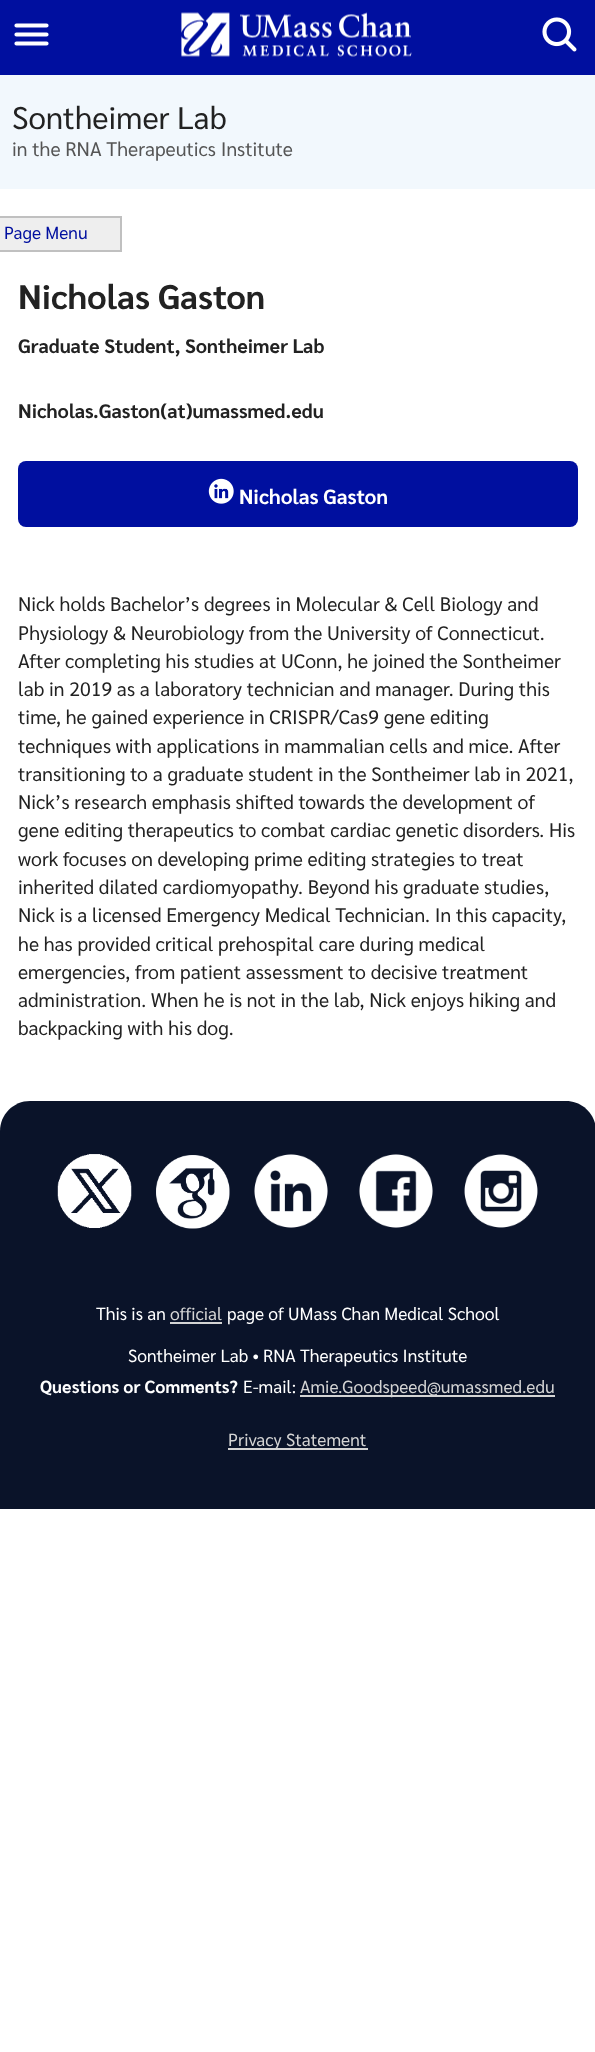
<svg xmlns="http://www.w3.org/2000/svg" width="595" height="2052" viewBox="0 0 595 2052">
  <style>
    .t1 { font: 31.25px Sarabun; fill: #222; }
    .t2 { font: 19.5px Sarabun; fill: #555; }
    .t3 { font: 17.5px Sarabun; fill: #000f9f; }
    .t4 { font: bold 34px Sarabun; fill: #222; }
    .t5 { font: bold 19.5px Sarabun; fill: #222; }
    .t6 { font: bold 20.5px Sarabun; fill: #fff; }
    .t7 { font: 19.5px Sarabun; fill: #222; }
    .t8 { font: 17.5px Sarabun; fill: #fff; }
    .t9 { font: 17.5px Sarabun; fill: #d4d4d4; }
    .t10 { font: bold 17.5px Sarabun; fill: #fff; }
  </style>
  <rect width="100%" height="100%" fill="#fff"/>
  <rect x="0" y="0" width="595" height="75" fill="#000f9f"/>
  <path d="M16.5 25.5H46.5M16.5 34.5H46.5M16.5 43.5H46.5" fill="none" stroke="#fff" stroke-width="4.2" stroke-linecap="round"/>
  <image x="181" y="12" width="231" height="45" href="images/1.png"/>
  <image x="542" y="17" width="35" height="35" href="images/2.png"/>
  <rect x="0" y="75" width="595" height="114" fill="#f2f8fd"/>
  <text x="12" y="129" class="t1">Sontheimer Lab</text>
  <text x="12" y="156" class="t2">in the RNA Therapeutics Institute</text>
  <rect x="-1" y="217" width="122" height="34" fill="#eee" stroke="#c0c0c0" stroke-width="2"/>
  <text x="4" y="239" class="t3">Page Menu</text>
  <text x="18" y="309" class="t4">Nicholas Gaston</text>
  <text x="18" y="353" class="t5">Graduate Student, Sontheimer Lab</text>
  <text x="18" y="418" class="t5">Nicholas.Gaston(at)umassmed.edu</text>
  <rect x="18" y="461" width="560" height="66" rx="8" fill="#000f9f"/>
  <image x="208" y="478" width="26" height="26" href="images/3.png"/>
  <text x="239" y="504" class="t6">Nicholas Gaston</text>
  <text x="18" y="611" class="t7">Nick holds Bachelor’s degrees in Molecular &amp; Cell Biology and</text>
  <text x="18" y="640" class="t7">Physiology &amp; Neurobiology from the University of Connecticut.</text>
  <text x="18" y="668" class="t7">After completing his studies at UConn, he joined the Sontheimer</text>
  <text x="18" y="696" class="t7">lab in 2019 as a laboratory technician and manager. During this</text>
  <text x="18" y="724" class="t7">time, he gained experience in CRISPR/Cas9 gene editing</text>
  <text x="18" y="753" class="t7">techniques with applications in mammalian cells and mice. After</text>
  <text x="18" y="781" class="t7">transitioning to a graduate student in the Sontheimer lab in 2021,</text>
  <text x="18" y="809" class="t7">Nick’s research emphasis shifted towards the development of</text>
  <text x="18" y="837" class="t7">gene editing therapeutics to combat cardiac genetic disorders. His</text>
  <text x="18" y="866" class="t7">work focuses on developing prime editing strategies to treat</text>
  <text x="18" y="894" class="t7">inherited dilated cardiomyopathy. Beyond his graduate studies,</text>
  <text x="18" y="922" class="t7">Nick is a licensed Emergency Medical Technician. In this capacity,</text>
  <text x="18" y="951" class="t7">he has provided critical prehospital care during medical</text>
  <text x="18" y="979" class="t7">emergencies, from patient assessment to decisive treatment</text>
  <text x="18" y="1007" class="t7">administration. When he is not in the lab, Nick enjoys hiking and</text>
  <text x="18" y="1035" class="t7">backpacking with his dog.</text>
  <path d="M30 1101H566C582.5 1101 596 1114.5 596 1131V1509H0V1131C0 1114.5 13.5 1101 30 1101Z" fill="#0a1329"/>
  <image x="57" y="1154" width="75" height="74" href="images/4.png"/>
  <image x="156" y="1155" width="74" height="74" href="images/5.png"/>
  <image x="254" y="1154" width="74" height="74" href="images/6.png"/>
  <image x="359" y="1154" width="74" height="74" href="images/7.png"/>
  <image x="464" y="1154" width="74" height="74" href="images/8.png"/>
  <text x="96" y="1320" class="t8">This is an</text>
  <text x="170" y="1320" class="t9">official</text>
  <rect x="170" y="1322" width="52" height="2" fill="#d4d4d4"/>
  <text x="227" y="1320" class="t8">page of UMass Chan Medical School</text>
  <text x="128" y="1362" class="t8">Sontheimer Lab • RNA Therapeutics Institute</text>
  <text x="40" y="1393" class="t10">Questions or Comments?</text>
  <text x="243" y="1393" class="t8">E-mail:</text>
  <rect x="300" y="1395" width="255" height="2" fill="#d4d4d4"/>
  <text x="300" y="1393" class="t9">Amie.Goodspeed@umassmed.edu</text>
  <rect x="228" y="1448" width="140" height="2" fill="#d4d4d4"/>
  <text x="228" y="1446" class="t9">Privacy Statement</text>
</svg>
